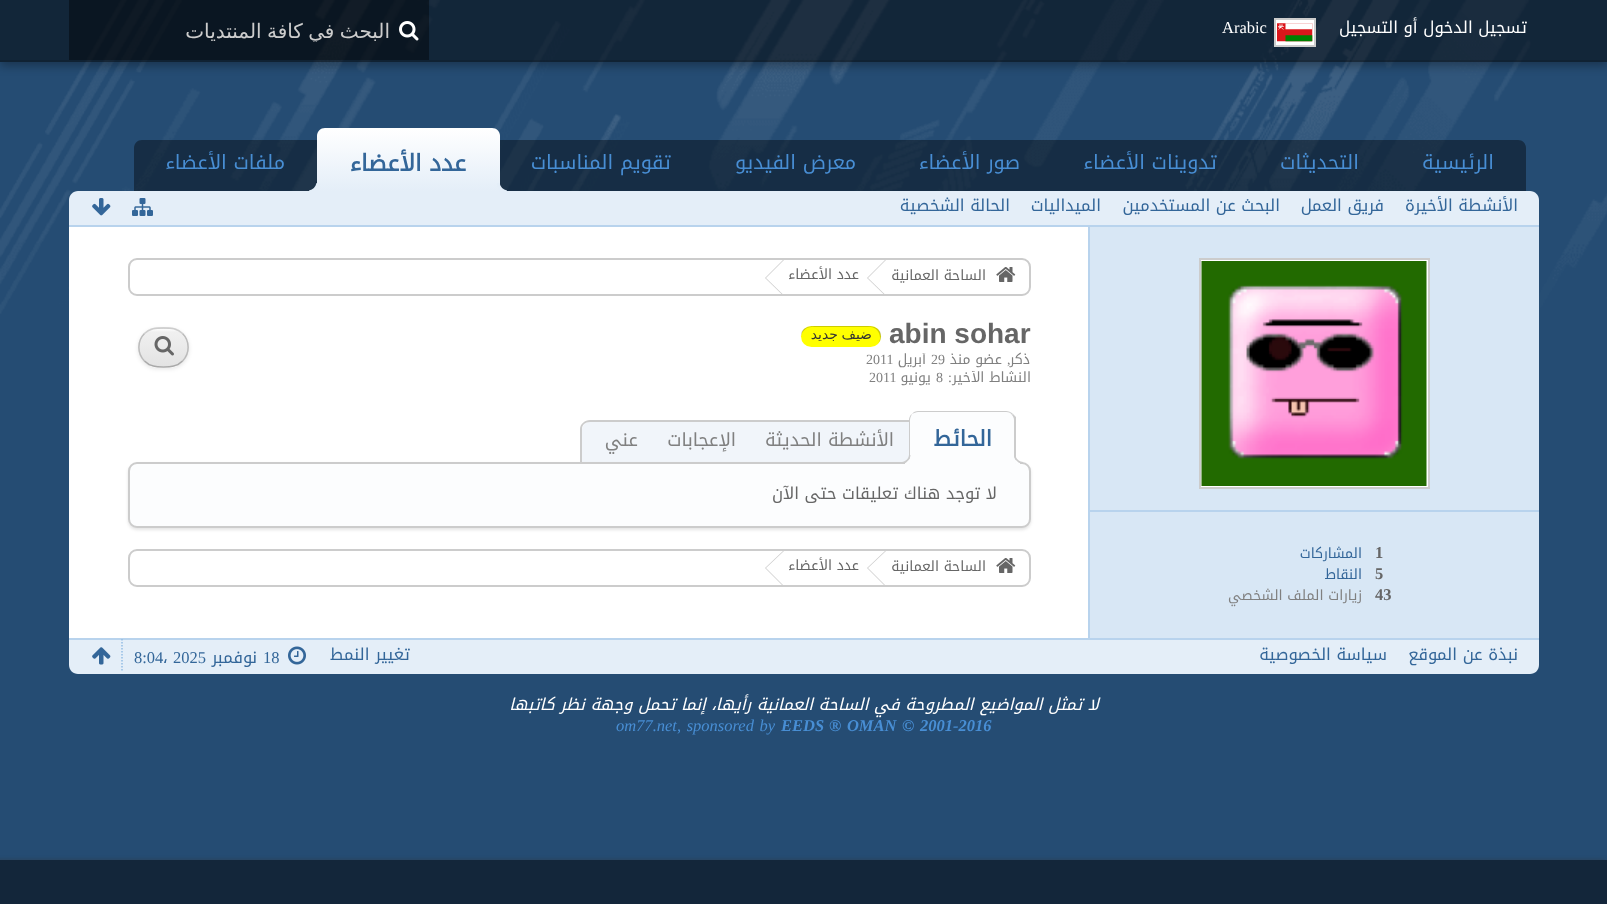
<svg xmlns="http://www.w3.org/2000/svg" width="1607" height="904" viewBox="0 0 1607 904">
  <style>
    .t1 { font: 16.5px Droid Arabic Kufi; direction: rtl; fill: #fff; }
    .t2 { font: 16.5px Liberation Serif; fill: #fff; }
    .t3 { font: 20px DejaVu Sans; direction: rtl; fill: #ccc; }
    .t4 { font: 19.75px Droid Arabic Kufi; direction: rtl; fill: #488ed4; }
    .t5 { font: bold 23px Droid Arabic Kufi; direction: rtl; fill: #369; }
    .t6 { font: 16.5px Droid Arabic Kufi; direction: rtl; fill: #369; }
    .t7 { font: bold 16.5px Liberation Serif; fill: #666; }
    .t8 { font: 14px Droid Arabic Kufi; direction: rtl; fill: #369; }
    .t9 { font: 14px Droid Arabic Kufi; direction: rtl; fill: #808080; }
    .t10 { font: 14px Droid Arabic Kufi; direction: rtl; fill: #666; }
    .t11 { font: bold 28px Liberation Sans; fill: #666; }
    .t12 { font: 14px DejaVu Sans; direction: rtl; fill: #333; }
    .t13 { font: 14px Liberation Serif; fill: #808080; }
    .t14 { font: bold 21.5px Droid Arabic Kufi; direction: rtl; fill: #369; }
    .t15 { font: 18.25px Droid Arabic Kufi; direction: rtl; fill: #808080; }
    .t16 { font: 16.5px Droid Arabic Kufi; direction: rtl; fill: #666; }
    .t17 { font: 16.5px Liberation Serif; fill: #369; }
    .t18 { font: 16.5px Droid Arabic Kufi; fill: #369; }
    .t19 { font: italic 16.5px Droid Arabic Kufi; direction: rtl; fill: #fff; }
    .t20 { font: italic bold 16.5px Liberation Serif; fill: #488ed4; }
    .t21 { font: italic 16.5px Liberation Serif; fill: #488ed4; }
  </style>
  <defs>
    <clipPath id="clip1"><path d="M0 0H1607V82H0ZM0 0H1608V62H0Z" clip-rule="evenodd"/></clipPath>
    <clipPath id="clip2"><rect x="87" y="20" width="303" height="22"/></clipPath>
    <linearGradient id="g1" gradientUnits="userSpaceOnUse" x1="408" y1="128" x2="408" y2="191"><stop offset="0" stop-color="#fff"/><stop offset="1" stop-color="#e4eef8"/></linearGradient>
    <clipPath id="clip3"><rect x="138" y="327" width="51" height="41" rx="20.5"/></clipPath>
    <linearGradient id="g2" gradientUnits="userSpaceOnUse" x1="164" y1="291" x2="164" y2="329"><stop offset="0" stop-color="#fdfdfd"/><stop offset="0.08" stop-color="#f0f0f0"/><stop offset="1" stop-color="#e3e3e3"/></linearGradient>
    <linearGradient id="g3" gradientUnits="userSpaceOnUse" x1="164" y1="329" x2="164" y2="366"><stop offset="0" stop-color="#fdfdfd"/><stop offset="0.08" stop-color="#f0f0f0"/><stop offset="1" stop-color="#e3e3e3"/></linearGradient>
    <linearGradient id="g4" gradientUnits="userSpaceOnUse" x1="164" y1="366" x2="164" y2="404"><stop offset="0" stop-color="#fdfdfd"/><stop offset="0.08" stop-color="#f0f0f0"/><stop offset="1" stop-color="#e3e3e3"/></linearGradient>
    <clipPath id="clip4"><rect x="770" y="353" width="261" height="18"/></clipPath>
    <clipPath id="clip5"><rect x="770" y="371" width="261" height="18"/></clipPath>
    <clipPath id="clip6"><rect x="1014" y="455" width="9" height="9"/></clipPath>
    <clipPath id="clip7"><rect x="902" y="455" width="9" height="9"/></clipPath>
  </defs>
  <rect width="100%" height="100%" fill="#254c73"/>
  <image x="0" y="0" width="1607" height="314" href="images/1.png"/>
  <g clip-path="url(#clip1)">
    <rect x="0" y="5" width="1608" height="61" fill="#0000004d" filter="blur(5px)"/>
  </g>
  <rect x="0" y="0" width="1607" height="62" fill="#00000080"/>
  <rect x="0" y="60" width="1607" height="2" fill="#0000001a"/>
  <text x="1527" y="33" class="t1">تسجيل الدخول أو التسجيل</text>
  <rect x="1275" y="19" width="40" height="27" fill="#fff" stroke="#ccc" stroke-width="2"/>
  <image x="1277" y="23" width="36" height="19" href="images/2.png"/>
  <text x="1222" y="33" class="t2">Arabic</text>
  <rect x="69" y="0" width="360" height="60" fill="#00000066"/>
  <image x="399" y="21" width="20" height="20" href="images/3.png"/>
  <g clip-path="url(#clip2)">
    <text x="390" y="38" word-spacing="-1" class="t3">البحث في كافة المنتديات</text>
  </g>
  <path d="M142 140H1518C1522.5 140 1526 143.5 1526 148V191H134V148C134 143.5 137.5 140 142 140Z" fill="#00000066"/>
  <text x="1494" y="169" class="t4">الرئيسية</text>
  <text x="1359" y="169" class="t4">التحديثات</text>
  <text x="1217" y="169" class="t4">تدوينات الأعضاء</text>
  <text x="1020" y="169" class="t4">صور الأعضاء</text>
  <text x="856" y="169" class="t4">معرض الفيديو</text>
  <text x="671" y="169" class="t4">تقويم المناسبات</text>
  <path d="M325 128H492C496.5 128 500 131.5 500 136V191H317V136C317 131.5 320.5 128 325 128Z" fill="url(#g1)"/>
  <text x="466" y="171" class="t5">عدد الأعضاء</text>
  <path d="M78 191H1530C1535 191 1539 195 1539 200V227H69V200C69 195 73 191 78 191Z" fill="#e4eef8"/>
  <path d="M497 183C497 189.5 499.5 194 507 194V190.5C503 189.5 500.5 187 499.5 183Z" fill="#e4eef8"/>
  <path d="M309 190.5V194C316.5 194 320 190.5 320 183H316.5C315.5 187 313 189.5 309 190.5Z" fill="#e4eef8"/>
  <text x="285" y="169" class="t4">ملفات الأعضاء</text>
  <rect x="69" y="225" width="1470" height="2" fill="#b8d3ed"/>
  <text x="1518" y="211" class="t6">الأنشطة الأخيرة</text>
  <text x="1384" y="211" class="t6">فريق العمل</text>
  <text x="1280" y="211" class="t6">البحث عن المستخدمين</text>
  <text x="1101" y="211" class="t6">الميداليات</text>
  <text x="1010" y="211" class="t6">الحالة الشخصية</text>
  <image x="132" y="198" width="21" height="18" href="images/4.png"/>
  <image x="92" y="198" width="19" height="18" href="images/5.png"/>
  <rect x="69" y="227" width="1019" height="411" fill="#fff"/>
  <rect x="1090" y="227" width="449" height="411" fill="#d8e7f5"/>
  <rect x="1088" y="227" width="2" height="411" fill="#b8d3ed"/>
  <rect x="1088" y="510" width="451" height="2" fill="#b8d3ed"/>
  <rect x="1200" y="259" width="229" height="229" fill="#fff" stroke="#ccc" stroke-width="2"/>
  <image x="1201" y="261" width="226" height="225" href="images/6.png"/>
  <text x="1375" y="558" class="t7">1</text>
  <text x="1362" y="558" class="t8">المشاركات</text>
  <text x="1375" y="579" class="t7">5</text>
  <text x="1362" y="579" class="t8">النقاط</text>
  <text x="1375" y="600" class="t7">43</text>
  <text x="1362" y="600" class="t9">زيارات الملف الشخصي</text>
  <rect x="129" y="259" width="901" height="36" rx="8" fill="none" stroke="#ccc" stroke-width="2"/>
  <image x="996" y="267" width="20" height="15" href="images/7.png"/>
  <text x="986" y="280" class="t10">الساحة العمانية</text>
  <path d="M883.5 294L867 278L885 260H890V294Z" fill="#ccc"/>
  <path d="M884.5 294L868 278L886 260H891V294Z" fill="#fff"/>
  <text x="859" y="279" class="t10">عدد الأعضاء</text>
  <path d="M781.5 294L765 278L783 260H788V294Z" fill="#ccc"/>
  <path d="M782.5 294L766 278L784 260H789V294Z" fill="#fff"/>
  <text x="889" y="343" class="t11">abin sohar</text>
  <rect x="801" y="326" width="80" height="21" rx="10.5" fill="#ff0"/>
  <path d="M812 327H870C876 327 880 332 880 338C880 340 879 342 878 343C881 341 881 338 881 334C879 325 868 326 861 326H821C813 326 800 325 801 337C801 332 806 327 812 327Z" fill="#00000033"/>
  <text x="872" y="339" word-spacing="-1" class="t12">ضيف جديد</text>
  <rect x="138" y="329" width="51" height="40" rx="20" fill="#0000001a" filter="blur(2px)"/>
  <g clip-path="url(#clip3)">
    <rect x="149" y="327" width="28" height="2" fill="url(#g2)"/>
    <rect x="138" y="329" width="51" height="37" fill="url(#g3)"/>
    <rect x="150" y="366" width="27" height="2" fill="url(#g4)"/>
  </g>
  <path d="M144.5 333.5C150 328 156 328 163.5 328C171 328 177 328 182.5 333.5" fill="none" stroke="#cdcdcd" stroke-width="1.5"/>
  <path d="M182.5 333.5C190 341 190 353.5 182.5 361" fill="none" stroke="#bbb" stroke-width="1.5"/>
  <path d="M182.5 361C177 366.5 171 367 163.5 367C156 367 150 366.5 144.5 361" fill="none" stroke="#a9a9a9" stroke-width="1.5"/>
  <path d="M144.5 361C137 353.5 137 341 144.5 333.5" fill="none" stroke="#bbb" stroke-width="1.5"/>
  <image x="154" y="336" width="20" height="20" href="images/8.png"/>
  <text x="1030" y="364" class="t9">ذكر</text>
  <text x="1007" y="364" class="t13">,</text>
  <text x="1002" y="364" class="t9">عضو منذ</text>
  <text x="931" y="364" class="t13">29</text>
  <g clip-path="url(#clip4)">
    <text x="926" y="364" class="t9">أبريل</text>
  </g>
  <text x="866" y="364" class="t13">2011</text>
  <g clip-path="url(#clip5)">
    <text x="1031" y="382" class="t9">النشاط الأخير</text>
  </g>
  <text x="948" y="382" class="t13">:</text>
  <text x="936" y="382" class="t13">8</text>
  <text x="931" y="382" class="t9">يونيو</text>
  <text x="869" y="382" class="t13">2011</text>
  <path d="M590 422H1006C1010.5 422 1014 425.5 1014 430V464H582V430C582 425.5 585.5 422 590 422Z" fill="#f1f5fa"/>
  <path d="M590 420H1006C1011 420 1016 424 1016 429V464H580V429C580 424 585 420 590 420ZM590 422H1006C1011 422 1014 425 1014 429V464H582V429C582 425 585 422 590 422Z" fill="#ccc" fill-rule="evenodd"/>
  <rect x="128" y="464" width="903" height="66" rx="9" fill="#0000001a" filter="blur(1.5px)"/>
  <rect x="129" y="463" width="901" height="64" rx="8" fill="#fcfdfe" stroke="#ccc" stroke-width="2"/>
  <path d="M918 411H1007C1012 411 1016 415 1016 420V464H909V420C909 415 913 411 918 411Z" fill="#fcfdfe"/>
  <path d="M918 411C916 411 913 412 912 414C914 413 916 412 918 412H1006C1009 412 1011 413 1012 415L1013 414C1011 412 1008 411 1006 411Z" fill="#ccc"/>
  <path d="M1013 414L1016 417V464L1014 462V420C1014 418 1013 416 1012 415Z" fill="#ccc"/>
  <path d="M1016 464L1014 462H910L909 464Z" fill="#fcfdfe"/>
  <path d="M909 464L910 462V420C910 418 911 416 912 414C910 415 909 418 909 420Z" fill="#ccc"/>
  <text x="992" y="446" class="t14">الحائط</text>
  <g clip-path="url(#clip6)">
    <path d="M1011 456C1011 461 1015 465 1020 465V463C1017 462 1014.5 459.5 1014 456Z" fill="#fcfdfe"/>
  </g>
  <path d="M1014 454.5H1023V463.5C1018 463.5 1014 459.5 1014 454.5ZM1015.5 454.5H1023V462C1019 462 1015.5 458.5 1015.5 454.5Z" fill="#ccc" fill-rule="evenodd"/>
  <g clip-path="url(#clip7)">
    <path d="M905 463V465C910 465 914 461 914 456H910.5C910 459 908 461.5 905 463Z" fill="#fcfdfe"/>
    <path d="M901.5 454.5H910.5C910.5 459.5 906.5 463.5 901.5 463.5ZM901.5 454.5H909C909 458.5 905.5 462 901.5 462Z" fill="#ccc" fill-rule="evenodd"/>
  </g>
  <text x="894" y="446" class="t15">الأنشطة الحديثة</text>
  <text x="736" y="446" class="t15">الإعجابات</text>
  <text x="638" y="446" class="t15">عني</text>
  <text x="997" y="499" class="t16">لا توجد هناك تعليقات حتى الآن</text>
  <rect x="129" y="550" width="901" height="36" rx="8" fill="none" stroke="#ccc" stroke-width="2"/>
  <image x="996" y="558" width="20" height="15" href="images/7.png"/>
  <text x="986" y="571" class="t10">الساحة العمانية</text>
  <path d="M884 585L867 568L885 551H890V585Z" fill="#ccc"/>
  <path d="M885 585L868 568L886 551H891V585Z" fill="#fff"/>
  <text x="859" y="570" class="t10">عدد الأعضاء</text>
  <path d="M782 585L765 568L783 551H788V585Z" fill="#ccc"/>
  <path d="M783 585L766 568L784 551H789V585Z" fill="#fff"/>
  <path d="M69 638H1539V665C1539 670 1535 674 1530 674H78C73 674 69 670 69 665Z" fill="#e4eef8"/>
  <rect x="69" y="638" width="1470" height="2" fill="#b8d3ed"/>
  <text x="1518" y="660" class="t6">نبذة عن الموقع</text>
  <text x="1387" y="660" class="t6">سياسة الخصوصية</text>
  <path d="M122 639V672" fill="none" stroke="#93bde3" stroke-width="1.5" stroke-dasharray="1.5 1.5"/>
  <text x="410" y="660" class="t6">تغيير النمط</text>
  <image x="288" y="646" width="18" height="19" href="images/9.png"/>
  <text x="263" y="663" class="t17">18</text>
  <text x="257" y="663" class="t6">نوفمبر</text>
  <text x="173" y="663" class="t17">2025</text>
  <text x="163" y="663" class="t18">،</text>
  <text x="134" y="663" class="t17">8:04</text>
  <image x="92" y="647" width="19" height="18" href="images/10.png"/>
  <text x="1099" y="710" class="t19">لا تمثل المواضيع المطروحة في الساحة العمانية رأيها، إنما تحمل وجهة نظر كاتبها</text>
  <text x="829" y="731" word-spacing="1.5" class="t20">® OMAN © 2001-2016</text>
  <text x="781" y="731" class="t20">EEDS</text>
  <text x="616" y="731" word-spacing="1.5" class="t21">om77.net, sponsored by</text>
  <rect x="-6" y="860" width="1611" height="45" fill="#33333380" filter="blur(2px)"/>
  <rect x="0" y="860" width="1607" height="44" fill="#13263a"/>
</svg>
